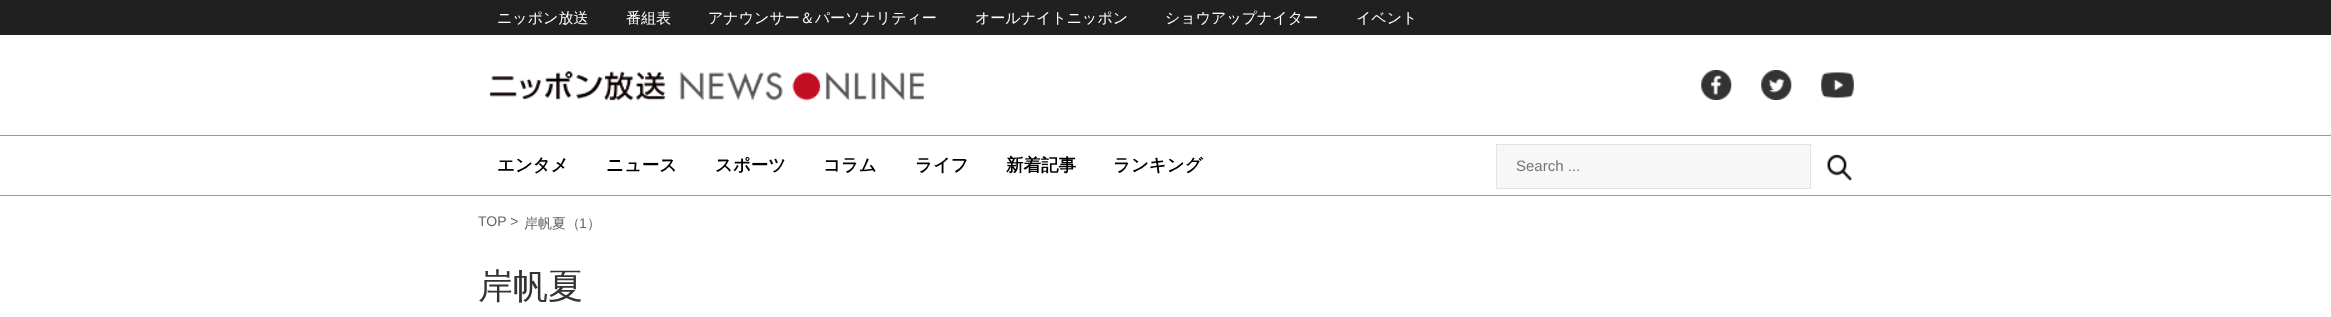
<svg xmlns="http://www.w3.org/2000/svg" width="2331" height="317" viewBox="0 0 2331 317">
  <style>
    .t1 { font: 500 15px WenQuanYi Zen Hei; fill: #fff; }
    .t2 { font: bold 17.5px WenQuanYi Zen Hei; fill: #000; }
    .t3 { font: 15px Liberation Sans; fill: #757575; }
    .t4 { font: 14px Liberation Sans; fill: #666; }
    .t5 { font: 500 14px WenQuanYi Zen Hei; fill: #666; }
    .t6 { font: 500 35px WenQuanYi Zen Hei; fill: #333; }
  </style>
  <rect width="100%" height="100%" fill="#fff"/>
  <rect x="0" y="0" width="2331" height="35" fill="#202020"/>
  <text x="497" y="23" class="t1">ニッポン放送</text>
  <text x="626" y="23" class="t1">番組表</text>
  <text x="708" y="23" class="t1">アナウンサー＆パーソナリティー</text>
  <text x="975" y="23" class="t1">オールナイトニッポン</text>
  <text x="1165" y="23" class="t1">ショウアップナイター</text>
  <text x="1356" y="23" class="t1">イベント</text>
  <image x="489" y="71" width="435" height="30" href="images/1.png"/>
  <image x="1701" y="70" width="31" height="30" href="images/2.png"/>
  <image x="1761" y="70" width="31" height="30" href="images/3.png"/>
  <image x="1821" y="72" width="33" height="26" href="images/4.png"/>
  <rect x="0" y="135" width="2331" height="1" fill="#999"/>
  <rect x="0" y="195" width="2331" height="1" fill="#999"/>
  <text x="497" y="171" class="t2">エンタメ</text>
  <text x="606" y="171" class="t2">ニュース</text>
  <text x="715" y="171" class="t2">スポーツ</text>
  <text x="823" y="171" class="t2">コラム</text>
  <text x="915" y="171" class="t2">ライフ</text>
  <text x="1006" y="171" class="t2">新着記事</text>
  <text x="1113" y="171" class="t2">ランキング</text>
  <rect x="1496.5" y="144.5" width="314" height="44" fill="#f7f7f7" stroke="#e3e3e3"/>
  <text x="1516" y="171" class="t3">Search ...</text>
  <image x="1827" y="154" width="25" height="27" href="images/5.png"/>
  <text x="478" y="226" class="t4">TOP &gt;</text>
  <text x="524" y="228" class="t5">岸帆夏（</text>
  <text x="579" y="228" class="t4">1</text>
  <text x="587" y="228" class="t5">）</text>
  <text x="478" y="298" class="t6">岸帆夏</text>
</svg>
